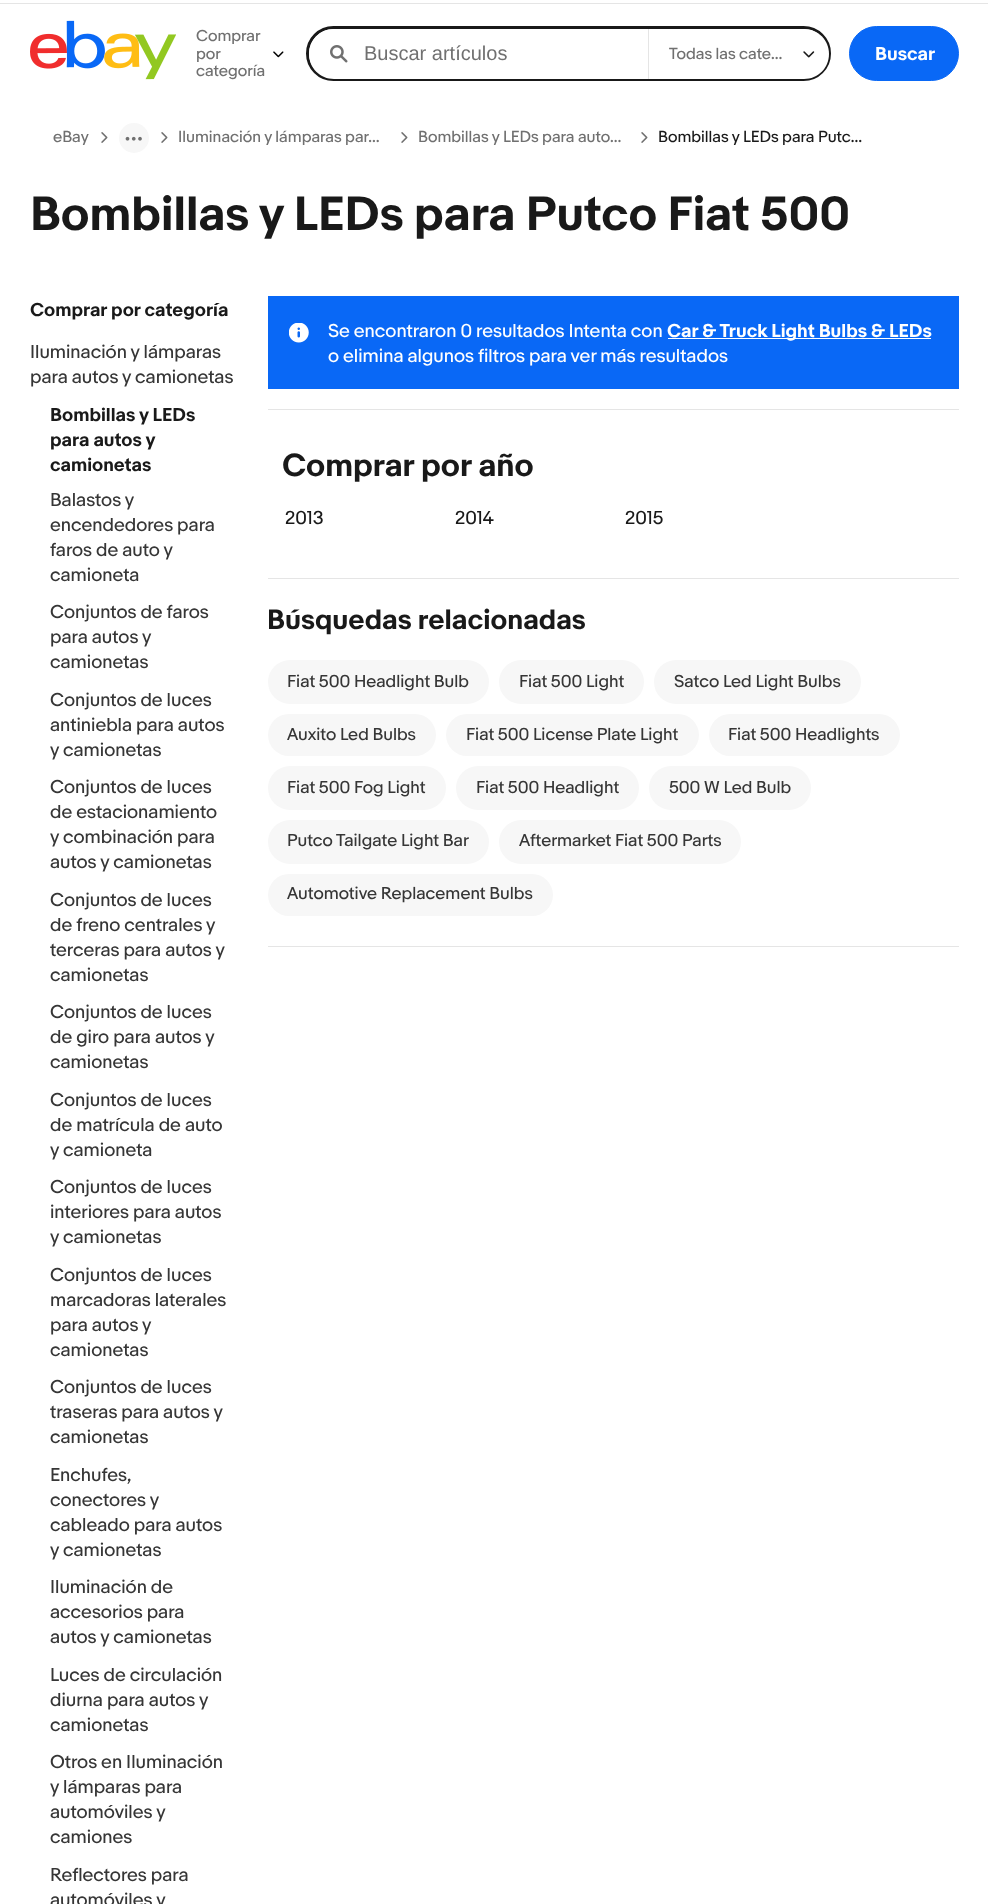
<svg xmlns="http://www.w3.org/2000/svg" width="988" height="1904" viewBox="0 0 988 1904">
  <style>
    .t1 { font: 15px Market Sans; fill: #707070; }
    .t2 { font: 20px Liberation Sans; fill: #707070; }
    .t3 { font: bold 17.5px Market Sans; fill: #fff; }
    .t4 { font: 15px Market Sans; fill: #191919; }
    .t5 { font: bold 45px Market Sans; fill: #191919; }
    .t6 { font: bold 17.5px Market Sans; fill: #191919; }
    .t7 { font: 17.5px Market Sans; fill: #363636; }
    .t8 { font: 17.5px Market Sans; fill: #fff; }
    .t9 { font: bold 30px Market Sans; fill: #191919; }
    .t10 { font: 17.5px Market Sans; fill: #191919; }
    .t11 { font: bold 26.25px Market Sans; fill: #191919; }
    .t12 { font: 16.25px Market Sans; fill: #363636; }
  </style>
  <rect width="100%" height="100%" fill="#fff"/>
  <rect x="0" y="3" width="988" height="1" fill="#e5e5e5"/>
  <image x="30" y="20" width="146" height="60" href="images/1.png"/>
  <text x="196" y="41" class="t1">Comprar</text>
  <text x="196" y="59" class="t1">por</text>
  <text x="196" y="76" class="t1">categoría</text>
  <image x="273" y="51" width="11" height="7" href="images/2.png"/>
  <rect x="307.5" y="27.5" width="522" height="52" rx="26" fill="none" stroke="#191919" stroke-width="3"/>
  <rect x="648" y="29" width="1" height="50" fill="#e5e5e5"/>
  <path d="M334 29H648V79H334C320 79 309 68 309 54C309 40 320 29 334 29Z" fill="#fff"/>
  <image x="330" y="45" width="18" height="18" href="images/3.png"/>
  <text x="364" y="60" class="t2">Buscar artículos</text>
  <path d="M649 29H804C818 29 829 40 829 54C829 68 818 79 804 79H649Z" fill="#fff"/>
  <image x="803" y="51" width="12" height="7" href="images/4.png"/>
  <text x="669" y="59" class="t1">Todas las cate…</text>
  <rect x="849.5" y="26.5" width="109" height="54" rx="27" fill="#0968f6" stroke="#0968f6"/>
  <text x="875" y="60" class="t3">Buscar</text>
  <text x="53" y="142" class="t1">eBay</text>
  <image x="101" y="132" width="7" height="11" href="images/5.png"/>
  <circle cx="134" cy="138" r="15" fill="#f7f7f7"/>
  <image x="125" y="136" width="17" height="5" href="images/6.png"/>
  <image x="161" y="132" width="7" height="11" href="images/5.png"/>
  <text x="178" y="142" class="t1">Iluminación y lámparas par…</text>
  <image x="401" y="132" width="7" height="11" href="images/5.png"/>
  <text x="418" y="142" class="t1">Bombillas y LEDs para auto…</text>
  <image x="641" y="132" width="7" height="11" href="images/5.png"/>
  <text x="658" y="142" class="t4">Bombillas y LEDs para Putc…</text>
  <text x="30" y="230" class="t5">Bombillas y LEDs para Putco Fiat 500</text>
  <text x="30" y="316" class="t6">Comprar por categoría</text>
  <text x="30" y="358" class="t7">Iluminación y lámparas</text>
  <text x="30" y="383" class="t7">para autos y camionetas</text>
  <text x="50" y="421" class="t6">Bombillas y LEDs</text>
  <text x="50" y="446" class="t6">para autos y</text>
  <text x="50" y="471" class="t6">camionetas</text>
  <text x="50" y="506" class="t7">Balastos y</text>
  <text x="50" y="531" class="t7">encendedores para</text>
  <text x="50" y="556" class="t7">faros de auto y</text>
  <text x="50" y="581" class="t7">camioneta</text>
  <text x="50" y="618" class="t7">Conjuntos de faros</text>
  <text x="50" y="643" class="t7">para autos y</text>
  <text x="50" y="668" class="t7">camionetas</text>
  <text x="50" y="706" class="t7">Conjuntos de luces</text>
  <text x="50" y="731" class="t7">antiniebla para autos</text>
  <text x="50" y="756" class="t7">y camionetas</text>
  <text x="50" y="793" class="t7">Conjuntos de luces</text>
  <text x="50" y="818" class="t7">de estacionamiento</text>
  <text x="50" y="843" class="t7">y combinación para</text>
  <text x="50" y="868" class="t7">autos y camionetas</text>
  <text x="50" y="906" class="t7">Conjuntos de luces</text>
  <text x="50" y="931" class="t7">de freno centrales y</text>
  <text x="50" y="956" class="t7">terceras para autos y</text>
  <text x="50" y="981" class="t7">camionetas</text>
  <text x="50" y="1018" class="t7">Conjuntos de luces</text>
  <text x="50" y="1043" class="t7">de giro para autos y</text>
  <text x="50" y="1068" class="t7">camionetas</text>
  <text x="50" y="1106" class="t7">Conjuntos de luces</text>
  <text x="50" y="1131" class="t7">de matrícula de auto</text>
  <text x="50" y="1156" class="t7">y camioneta</text>
  <text x="50" y="1193" class="t7">Conjuntos de luces</text>
  <text x="50" y="1218" class="t7">interiores para autos</text>
  <text x="50" y="1243" class="t7">y camionetas</text>
  <text x="50" y="1281" class="t7">Conjuntos de luces</text>
  <text x="50" y="1306" class="t7">marcadoras laterales</text>
  <text x="50" y="1331" class="t7">para autos y</text>
  <text x="50" y="1356" class="t7">camionetas</text>
  <text x="50" y="1393" class="t7">Conjuntos de luces</text>
  <text x="50" y="1418" class="t7">traseras para autos y</text>
  <text x="50" y="1443" class="t7">camionetas</text>
  <text x="50" y="1481" class="t7">Enchufes,</text>
  <text x="50" y="1506" class="t7">conectores y</text>
  <text x="50" y="1531" class="t7">cableado para autos</text>
  <text x="50" y="1556" class="t7">y camionetas</text>
  <text x="50" y="1593" class="t7">Iluminación de</text>
  <text x="50" y="1618" class="t7">accesorios para</text>
  <text x="50" y="1643" class="t7">autos y camionetas</text>
  <text x="50" y="1681" class="t7">Luces de circulación</text>
  <text x="50" y="1706" class="t7">diurna para autos y</text>
  <text x="50" y="1731" class="t7">camionetas</text>
  <text x="50" y="1768" class="t7">Otros en Iluminación</text>
  <text x="50" y="1793" class="t7">y lámparas para</text>
  <text x="50" y="1818" class="t7">automóviles y</text>
  <text x="50" y="1843" class="t7">camiones</text>
  <text x="50" y="1881" class="t7">Reflectores para</text>
  <text x="50" y="1906" class="t7">automóviles y</text>
  <rect x="268" y="409" width="691" height="1" fill="#e5e5e5"/>
  <rect x="268" y="296" width="691" height="93" fill="#0968f6"/>
  <image x="289" y="323" width="20" height="20" href="images/7.png"/>
  <text x="328" y="337" class="t8">Se encontraron 0 resultados Intenta con</text>
  <rect x="668" y="338" width="263" height="1" fill="#fff"/>
  <text x="667" y="337" class="t3">Car &amp; Truck Light Bulbs &amp; LEDs</text>
  <text x="328" y="362" class="t8">o elimina algunos filtros para ver más resultados</text>
  <rect x="268" y="578" width="691" height="1" fill="#e5e5e5"/>
  <text x="282" y="476" class="t9">Comprar por año</text>
  <text x="285" y="524" class="t10">2013</text>
  <text x="455" y="524" class="t10">2014</text>
  <text x="625" y="524" class="t10">2015</text>
  <rect x="268" y="946" width="691" height="1" fill="#e5e5e5"/>
  <text x="267" y="629" class="t11">Búsquedas relacionadas</text>
  <rect x="268" y="660" width="221" height="44" rx="22" fill="#f7f7f7"/>
  <text x="287" y="687" class="t12">Fiat 500 Headlight Bulb</text>
  <rect x="499" y="660" width="145" height="44" rx="22" fill="#f7f7f7"/>
  <text x="519" y="687" class="t12">Fiat 500 Light</text>
  <rect x="654" y="660" width="207" height="44" rx="22" fill="#f7f7f7"/>
  <text x="674" y="687" class="t12">Satco Led Light Bulbs</text>
  <rect x="268" y="714" width="168" height="42" rx="21" fill="#f7f7f7"/>
  <text x="287" y="740" class="t12">Auxito Led Bulbs</text>
  <rect x="446" y="714" width="253" height="42" rx="21" fill="#f7f7f7"/>
  <text x="466" y="740" class="t12">Fiat 500 License Plate Light</text>
  <rect x="709" y="714" width="191" height="42" rx="21" fill="#f7f7f7"/>
  <text x="728" y="740" class="t12">Fiat 500 Headlights</text>
  <rect x="268" y="766" width="178" height="44" rx="22" fill="#f7f7f7"/>
  <text x="287" y="793" class="t12">Fiat 500 Fog Light</text>
  <rect x="456" y="766" width="183" height="44" rx="22" fill="#f7f7f7"/>
  <text x="476" y="793" class="t12">Fiat 500 Headlight</text>
  <rect x="649" y="766" width="162" height="44" rx="22" fill="#f7f7f7"/>
  <text x="669" y="793" class="t12">500 W Led Bulb</text>
  <rect x="268" y="820" width="221" height="44" rx="22" fill="#f7f7f7"/>
  <text x="287" y="846" class="t12">Putco Tailgate Light Bar</text>
  <rect x="499" y="820" width="242" height="44" rx="22" fill="#f7f7f7"/>
  <text x="519" y="846" class="t12">Aftermarket Fiat 500 Parts</text>
  <rect x="268" y="874" width="285" height="42" rx="21" fill="#f7f7f7"/>
  <text x="287" y="899" class="t12">Automotive Replacement Bulbs</text>
</svg>
